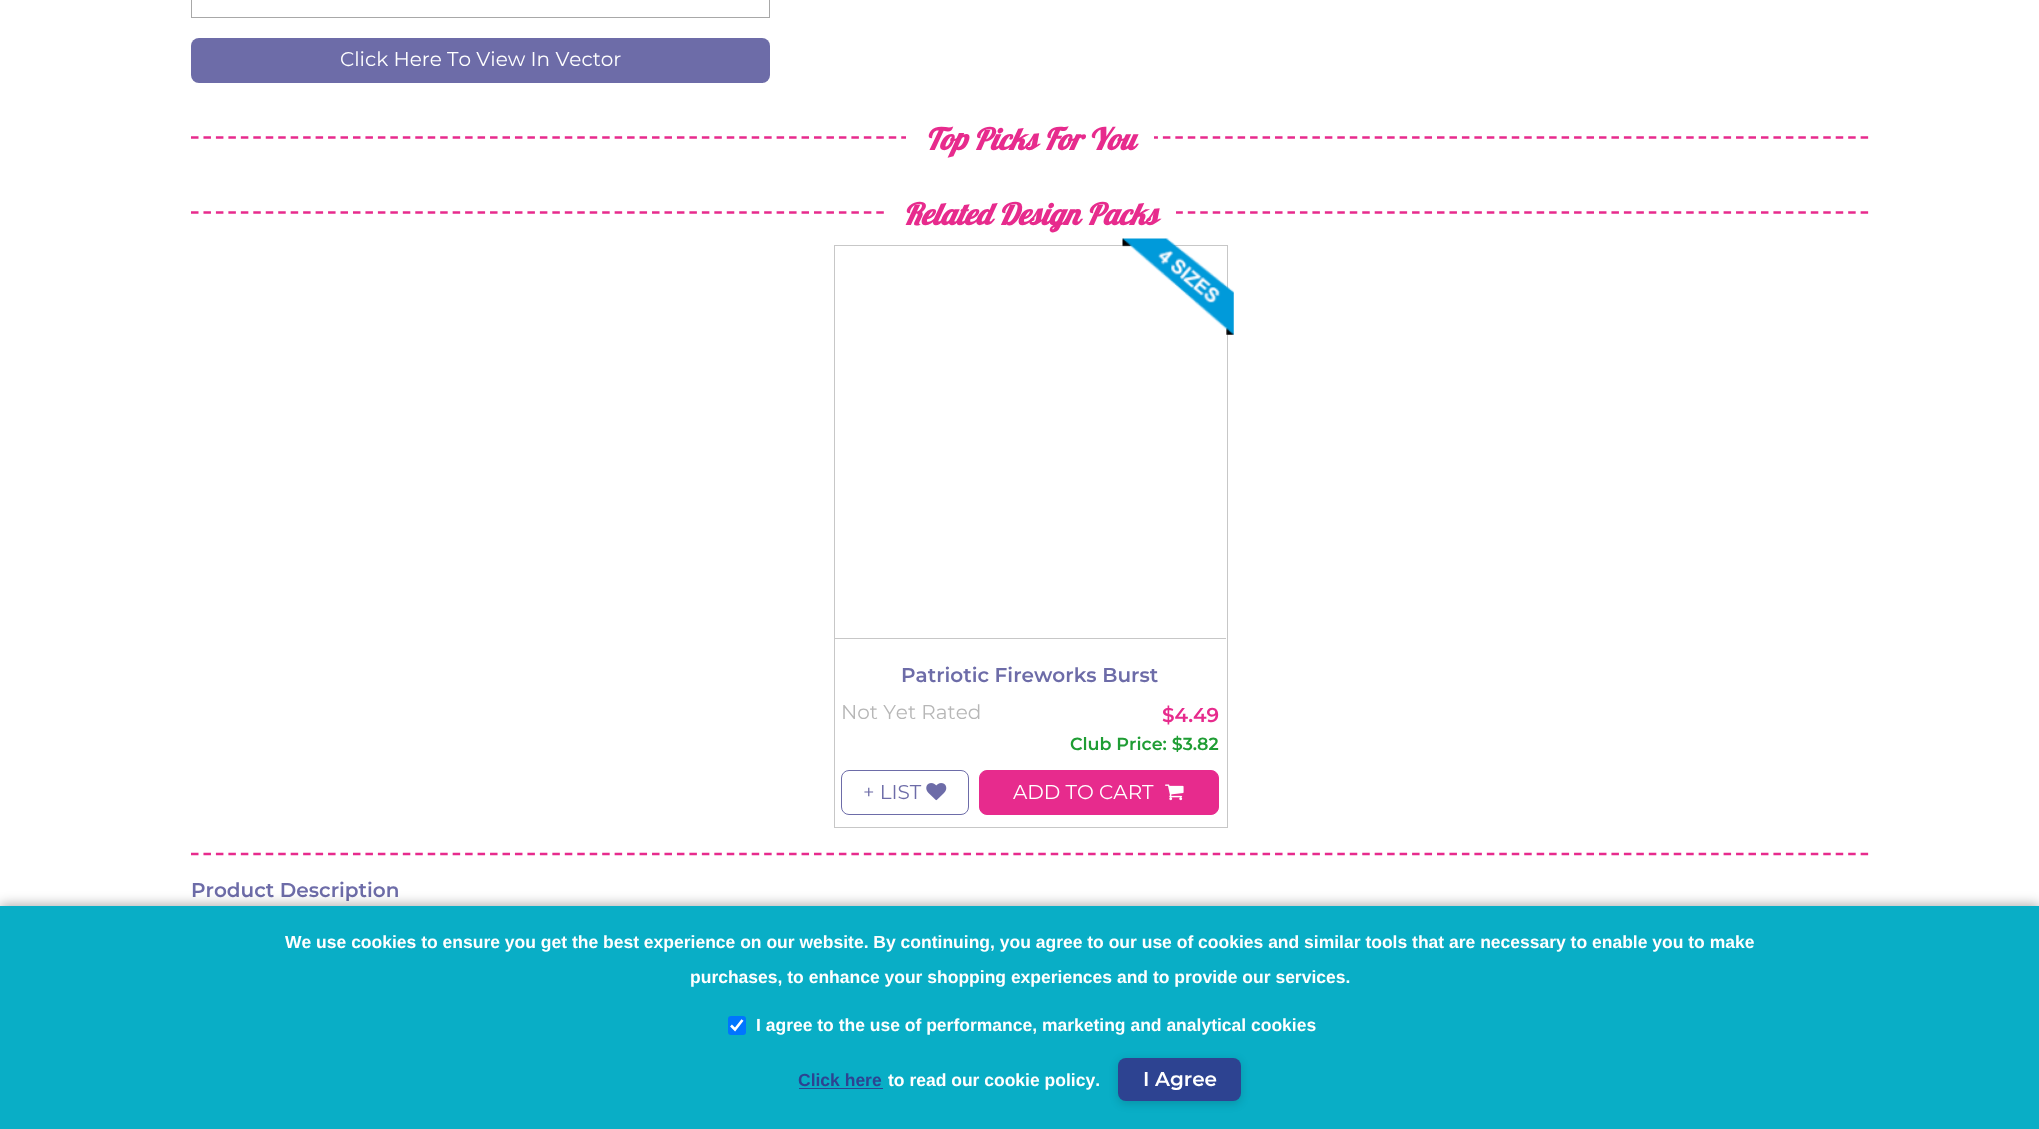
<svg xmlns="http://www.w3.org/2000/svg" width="2039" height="1129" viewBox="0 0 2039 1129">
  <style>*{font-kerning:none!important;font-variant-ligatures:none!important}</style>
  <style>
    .t1 { font: 20px Montserrat; fill: #fff; }
    .t2 { font: italic bold 30px Lobster; fill: #e72b8d; }
    .t3 { font: 600 20px Montserrat; fill: #6d6ca8; }
    .t4 { font: 20px Montserrat; fill: #b7b7b7; }
    .t5 { font: 600 20px Montserrat; fill: #e72b8d; }
    .t6 { font: 600 17.5px Montserrat; fill: #1f9d34; }
    .t7 { font: 20px Montserrat; fill: #6d6ca8; }
    .t8 { font: bold 17.5px Liberation Sans; fill: #fff; }
    .t9 { font: bold 17.5px Liberation Sans; fill: #2d4391; }
    .t10 { font: 600 20px Montserrat; fill: #fff; }
  </style>
  <rect width="100%" height="100%" fill="#fff"/>
  <rect x="191.5" y="-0.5" width="578" height="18" fill="none" stroke="#a8a8a8"/>
  <rect x="191" y="38" width="579" height="45" rx="8" fill="#6d6ca8"/>
  <text x="340" y="66" class="t1">Click Here To View In Vector</text>
  <path d="M191 137.5H1869" fill="none" stroke="#e72b8d" stroke-width="2.5" stroke-dasharray="7.5 4.96"/>
  <rect x="906" y="136" width="248" height="3" fill="#fff"/>
  <text x="925" y="150" class="t2">Top Picks For You</text>
  <path d="M191 212.5H1869" fill="none" stroke="#e72b8d" stroke-width="2.5" stroke-dasharray="7.5 4.96"/>
  <rect x="888" y="211" width="288" height="3" fill="#fff"/>
  <text x="903" y="225" class="t2">Related Design Packs</text>
  <rect x="834.5" y="245.5" width="393" height="582" fill="none" stroke="#c7c7c7"/>
  <image x="1122" y="238" width="112" height="97" href="images/1.png"/>
  <rect x="835" y="638" width="391" height="1" fill="#c7c7c7"/>
  <text x="901" y="682" class="t3">Patriotic Fireworks Burst</text>
  <text x="841" y="719" class="t4">Not Yet Rated</text>
  <text x="1162" y="722" class="t5">$4.49</text>
  <text x="1070" y="750" class="t6">Club Price: $3.82</text>
  <rect x="841.5" y="770.5" width="127" height="44" rx="7.5" fill="none" stroke="#6d6ca8"/>
  <text x="863" y="799" class="t7">+ LIST</text>
  <image x="926" y="783" width="21" height="18" href="images/2.png"/>
  <rect x="979.5" y="770.5" width="239" height="44" rx="7.5" fill="#e72b8d" stroke="#e72b8d"/>
  <text x="1013" y="799" class="t1">ADD TO CART</text>
  <image x="1165" y="784" width="19" height="17" href="images/3.png"/>
  <path d="M191 854H1869" fill="none" stroke="#e72b8d" stroke-width="2.5" stroke-dasharray="7.5 4.96"/>
  <text x="191" y="897" class="t3">Product Description</text>
  <rect x="0" y="904" width="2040" height="224" fill="#0000004d" filter="blur(6px)"/>
  <rect x="0" y="906" width="2039" height="223" fill="#09aec6"/>
  <text x="285" y="948" class="t8">We use cookies to ensure you get the best experience on our website. By continuing, you agree to our use of cookies and similar tools that are necessary to enable you to make</text>
  <text x="690" y="983" class="t8">purchases, to enhance your shopping experiences and to provide our services.</text>
  <rect x="728" y="1016" width="18" height="19" rx="3" fill="#0075ff"/>
  <path d="M731 1025.5L735 1029.5L742.5 1020" fill="none" stroke="#fff" stroke-width="2.6"/>
  <text x="756" y="1031" class="t8">I agree to the use of performance, marketing and analytical cookies</text>
  <text x="798" y="1086" class="t9">Click here</text>
  <rect x="799" y="1088" width="84" height="1" fill="#2d4391"/>
  <text x="888" y="1086" class="t8">to read our cookie policy.</text>
  <rect x="1118" y="1060" width="123" height="44" rx="8" fill="#00000026" filter="blur(4px)"/>
  <rect x="1118" y="1058" width="123" height="43" rx="8" fill="#2d4391"/>
  <text x="1143" y="1086" class="t10">I Agree</text>
</svg>
